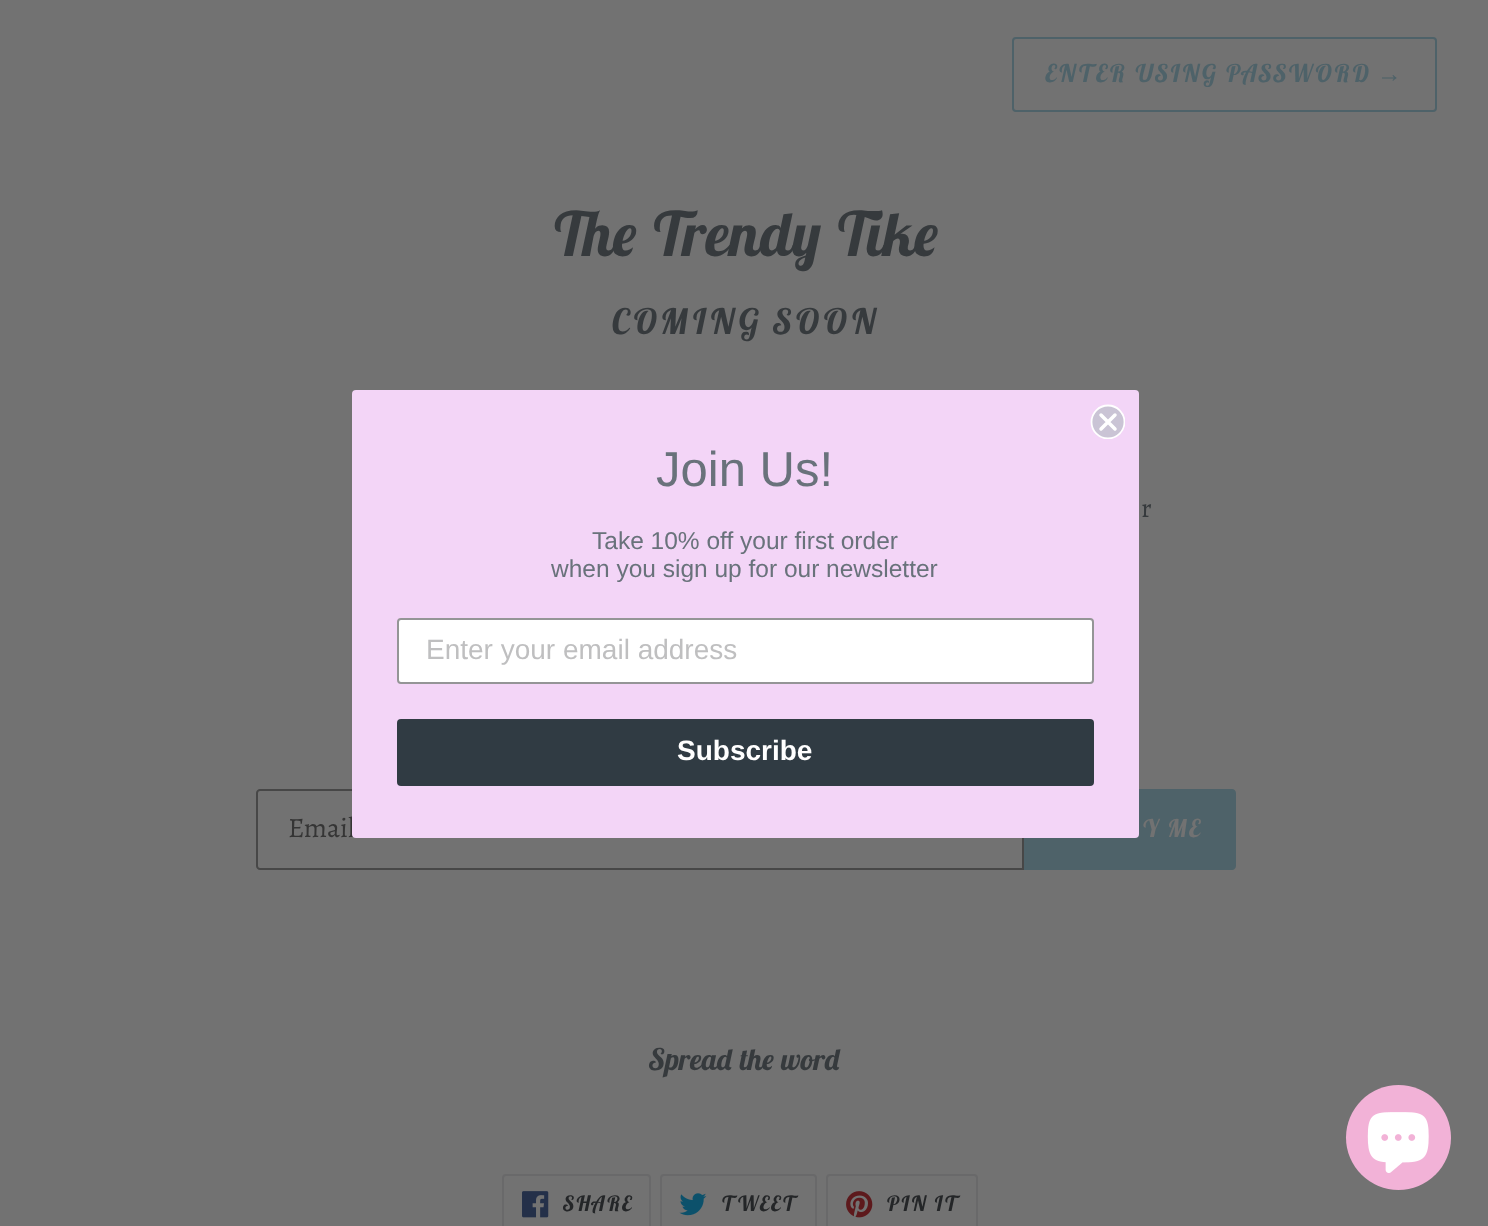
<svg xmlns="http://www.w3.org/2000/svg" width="1488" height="1226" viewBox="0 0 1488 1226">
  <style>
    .t1 { font: italic bold 24.5px Lobster Two; letter-spacing: 2px; fill: #4e6269; }
    .t2 { font: italic bold 24.5px Liberation Sans; letter-spacing: 2px; fill: #4e6269; }
    .t3 { font: italic bold 61.25px Lobster Two; fill: #363a3d; }
    .t4 { font: italic bold 35px Lobster Two; letter-spacing: 3.5px; fill: #363a3d; }
    .t5 { font: 28px Alegreya; fill: #363a3d; }
    .t6 { font: 28px Alegreya; fill: #353535; }
    .t7 { font: italic bold 24.5px Lobster Two; letter-spacing: 2px; fill: #727272; }
    .t8 { font: italic bold 29.75px Lobster Two; fill: #363a3d; }
    .t9 { font: italic bold 21px Lobster Two; letter-spacing: 1.75px; fill: #242628; }
    .t10 { font: 49px Liberation Sans; fill: #69727b; }
    .t11 { font: 24.5px Liberation Sans; fill: #69727b; }
    .t12 { font: 28px Liberation Sans; fill: #bfbfc0; }
    .t13 { font: bold 28px Liberation Sans; fill: #fff; }
  </style>
  <defs>
    <clipPath id="clip1"><rect x="1090" y="404" width="35" height="35"/></clipPath>
  </defs>
  <rect width="100%" height="100%" fill="#727272"/>
  <rect x="1013" y="38" width="423" height="73" rx="3" fill="none" stroke="#4e6269" stroke-width="2"/>
  <text x="1045" y="82" class="t1">ENTER USING PASSWORD</text>
  <text x="1377" y="82" class="t2">→</text>
  <text x="551" y="256" class="t3">The Trendy Tike</text>
  <text x="611" y="334" class="t4">COMING SOON</text>
  <text x="1141" y="517" class="t5">r</text>
  <path d="M260 790H1023V869H260C258.5 869 257 867.5 257 866V793C257 791.5 258.5 790 260 790Z" fill="none" stroke="#474747" stroke-width="2"/>
  <text x="288" y="837" class="t6">Email</text>
  <path d="M1024 789H1232C1234 789 1236 791 1236 793V866C1236 868 1234 870 1232 870H1024Z" fill="#4e6269"/>
  <text x="1142" y="837" class="t7">Y ME</text>
  <text x="649" y="1070" class="t8">Spread the word</text>
  <rect x="503" y="1175" width="147" height="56" rx="3" fill="none" stroke="#69696a" stroke-width="2"/>
  <image x="522" y="1191" width="27" height="27" href="images/1.png"/>
  <text x="563" y="1211" class="t9">SHARE</text>
  <rect x="661" y="1175" width="155" height="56" rx="3" fill="none" stroke="#69696a" stroke-width="2"/>
  <image x="679" y="1193" width="28" height="23" href="images/2.png"/>
  <text x="721" y="1211" class="t9">TWEET</text>
  <rect x="827" y="1175" width="150" height="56" rx="3" fill="none" stroke="#69696a" stroke-width="2"/>
  <image x="846" y="1191" width="27" height="27" href="images/3.png"/>
  <text x="886" y="1211" class="t9">PIN IT</text>
  <rect x="352" y="390" width="787" height="448" rx="4" fill="#f3d5f7"/>
  <circle cx="1108" cy="422" r="16.5" fill="#cac4d5"/>
  <g clip-path="url(#clip1)">
    <circle cx="1108" cy="422" r="16.5" fill="none" stroke="#fff" stroke-width="1.8"/>
  </g>
  <path d="M1101 415L1115 429M1101 429L1115 415Z" fill="none" stroke="#fff" stroke-width="3.5" stroke-linecap="round" stroke-linejoin="round"/>
  <text x="656" y="486" class="t10">Join Us!</text>
  <text x="592" y="549" class="t11">Take 10% off your first order</text>
  <text x="551" y="577" class="t11">when you sign up for our newsletter</text>
  <rect x="398" y="619" width="695" height="64" rx="3" fill="#fff" stroke="#949596" stroke-width="2"/>
  <text x="426" y="659" class="t12">Enter your email address</text>
  <rect x="397" y="719" width="697" height="67" rx="4" fill="#303b43"/>
  <text x="677" y="760" class="t13">Subscribe</text>
  <circle cx="1398.5" cy="1137.5" r="52.5" fill="#f2b2d7"/>
  <image x="1367" y="1112" width="62" height="61" href="images/4.png"/>
</svg>
